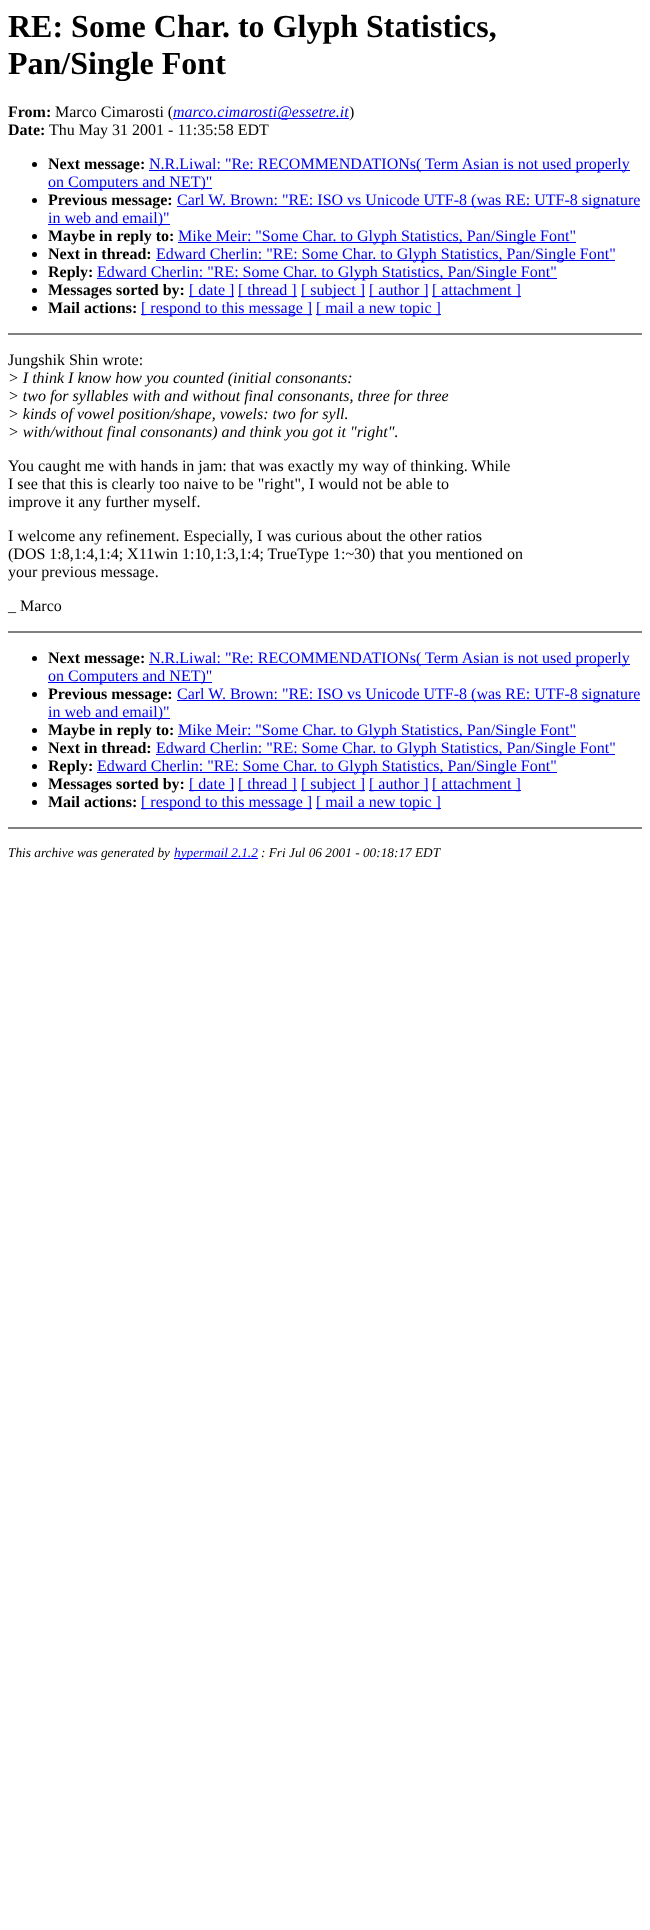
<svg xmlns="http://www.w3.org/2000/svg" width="650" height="1930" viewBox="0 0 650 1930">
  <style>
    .t1 { font: bold 32px Liberation Serif; fill: #000; }
    .t2 { font: bold 16px Liberation Serif; fill: #000; }
    .t3 { font: 16px Liberation Serif; fill: #000; }
    .t4 { font: italic 16px Liberation Serif; fill: #00e; }
    .t5 { font: 16px Liberation Serif; fill: #00e; }
    .t6 { font: italic 16px Liberation Serif; fill: #000; }
    .t7 { font: italic 13.3px Liberation Serif; fill: #000; }
    .t8 { font: italic 13.3px Liberation Serif; fill: #00e; }
  </style>
  <rect width="100%" height="100%" fill="#fff"/>
  <text x="8" y="37" class="t1">RE: Some Char. to Glyph Statistics,</text>
  <text x="8" y="74" class="t1">Pan/Single Font</text>
  <text x="8" y="117" class="t2">From:</text>
  <text x="55" y="117" class="t3">Marco Cimarosti (</text>
  <rect x="173" y="118" width="176" height="1" fill="#00e"/>
  <text x="173" y="117" class="t4">marco.cimarosti@essetre.it</text>
  <text x="349" y="117" class="t3">)</text>
  <text x="8" y="135" class="t2">Date:</text>
  <text x="49" y="135" class="t3">Thu May 31 2001 - 11:35:58 EDT</text>
  <circle cx="34.5" cy="164.5" r="2.5" fill="#000"/>
  <text x="48" y="169" class="t2">Next message:</text>
  <rect x="149" y="170" width="481" height="1" fill="#00e"/>
  <text x="149" y="169" class="t5">N.R.Liwal: "Re: RECOMMENDATIONs( Term Asian is not used properly</text>
  <rect x="48" y="188" width="164" height="1" fill="#00e"/>
  <text x="48" y="187" class="t5">on Computers and NET)"</text>
  <circle cx="34.5" cy="200.5" r="2.5" fill="#000"/>
  <text x="48" y="205" class="t2">Previous message:</text>
  <rect x="177" y="206" width="463" height="1" fill="#00e"/>
  <text x="177" y="205" class="t5">Carl W. Brown: "RE: ISO vs Unicode UTF-8 (was RE: UTF-8 signature</text>
  <rect x="48" y="224" width="122" height="1" fill="#00e"/>
  <text x="48" y="223" class="t5">in web and email)"</text>
  <circle cx="34.5" cy="236.5" r="2.5" fill="#000"/>
  <text x="48" y="241" class="t2">Maybe in reply to:</text>
  <rect x="178" y="242" width="398" height="1" fill="#00e"/>
  <text x="178" y="241" class="t5">Mike Meir: "Some Char. to Glyph Statistics, Pan/Single Font"</text>
  <circle cx="34.5" cy="254.5" r="2.5" fill="#000"/>
  <text x="48" y="259" class="t2">Next in thread:</text>
  <rect x="156" y="260" width="459" height="1" fill="#00e"/>
  <text x="156" y="259" class="t5">Edward Cherlin: "RE: Some Char. to Glyph Statistics, Pan/Single Font"</text>
  <circle cx="34.5" cy="272.5" r="2.5" fill="#000"/>
  <text x="48" y="277" class="t2">Reply:</text>
  <rect x="97" y="278" width="460" height="1" fill="#00e"/>
  <text x="97" y="277" class="t5">Edward Cherlin: "RE: Some Char. to Glyph Statistics, Pan/Single Font"</text>
  <circle cx="34.5" cy="290.5" r="2.5" fill="#000"/>
  <text x="48" y="295" class="t2">Messages sorted by:</text>
  <rect x="189" y="296" width="45" height="1" fill="#00e"/>
  <text x="189" y="295" class="t5">[ date ]</text>
  <rect x="238" y="296" width="59" height="1" fill="#00e"/>
  <text x="238" y="295" class="t5">[ thread ]</text>
  <rect x="301" y="296" width="64" height="1" fill="#00e"/>
  <text x="301" y="295" class="t5">[ subject ]</text>
  <rect x="369" y="296" width="59" height="1" fill="#00e"/>
  <text x="369" y="295" class="t5">[ author ]</text>
  <rect x="432" y="296" width="89" height="1" fill="#00e"/>
  <text x="432" y="295" class="t5">[ attachment ]</text>
  <circle cx="34.5" cy="308.5" r="2.5" fill="#000"/>
  <text x="48" y="313" class="t2">Mail actions:</text>
  <rect x="141" y="314" width="171" height="1" fill="#00e"/>
  <text x="141" y="313" class="t5">[ respond to this message ]</text>
  <rect x="316" y="314" width="125" height="1" fill="#00e"/>
  <text x="316" y="313" class="t5">[ mail a new topic ]</text>
  <rect x="8" y="333" width="634" height="2" fill="#808080"/>
  <text x="8" y="365" class="t3">Jungshik Shin wrote:</text>
  <text x="8" y="383" class="t6">&gt; I think I know how you counted (initial consonants:</text>
  <text x="8" y="401" class="t6">&gt; two for syllables with and without final consonants, three for three</text>
  <text x="8" y="419" class="t6">&gt; kinds of vowel position/shape, vowels: two for syll.</text>
  <text x="8" y="437" class="t6">&gt; with/without final consonants) and think you got it "right".</text>
  <text x="8" y="471" class="t3">You caught me with hands in jam: that was exactly my way of thinking. While</text>
  <text x="8" y="489" class="t3">I see that this is clearly too naive to be "right", I would not be able to</text>
  <text x="8" y="507" class="t3">improve it any further myself.</text>
  <text x="8" y="541" class="t3">I welcome any refinement. Especially, I was curious about the other ratios</text>
  <text x="8" y="559" class="t3">(DOS 1:8,1:4,1:4; X11win 1:10,1:3,1:4; TrueType 1:~30) that you mentioned on</text>
  <text x="8" y="577" class="t3">your previous message.</text>
  <text x="8" y="611" class="t3">_ Marco</text>
  <rect x="8" y="631" width="634" height="2" fill="#808080"/>
  <circle cx="34.5" cy="658.5" r="2.5" fill="#000"/>
  <text x="48" y="663" class="t2">Next message:</text>
  <rect x="149" y="664" width="481" height="1" fill="#00e"/>
  <text x="149" y="663" class="t5">N.R.Liwal: "Re: RECOMMENDATIONs( Term Asian is not used properly</text>
  <rect x="48" y="682" width="164" height="1" fill="#00e"/>
  <text x="48" y="681" class="t5">on Computers and NET)"</text>
  <circle cx="34.5" cy="694.5" r="2.5" fill="#000"/>
  <text x="48" y="699" class="t2">Previous message:</text>
  <rect x="177" y="700" width="463" height="1" fill="#00e"/>
  <text x="177" y="699" class="t5">Carl W. Brown: "RE: ISO vs Unicode UTF-8 (was RE: UTF-8 signature</text>
  <rect x="48" y="718" width="122" height="1" fill="#00e"/>
  <text x="48" y="717" class="t5">in web and email)"</text>
  <circle cx="34.5" cy="730.5" r="2.5" fill="#000"/>
  <text x="48" y="735" class="t2">Maybe in reply to:</text>
  <rect x="178" y="736" width="398" height="1" fill="#00e"/>
  <text x="178" y="735" class="t5">Mike Meir: "Some Char. to Glyph Statistics, Pan/Single Font"</text>
  <circle cx="34.5" cy="748.5" r="2.5" fill="#000"/>
  <text x="48" y="753" class="t2">Next in thread:</text>
  <rect x="156" y="754" width="459" height="1" fill="#00e"/>
  <text x="156" y="753" class="t5">Edward Cherlin: "RE: Some Char. to Glyph Statistics, Pan/Single Font"</text>
  <circle cx="34.5" cy="766.5" r="2.5" fill="#000"/>
  <text x="48" y="771" class="t2">Reply:</text>
  <rect x="97" y="772" width="460" height="1" fill="#00e"/>
  <text x="97" y="771" class="t5">Edward Cherlin: "RE: Some Char. to Glyph Statistics, Pan/Single Font"</text>
  <circle cx="34.5" cy="784.5" r="2.5" fill="#000"/>
  <text x="48" y="789" class="t2">Messages sorted by:</text>
  <rect x="189" y="790" width="45" height="1" fill="#00e"/>
  <text x="189" y="789" class="t5">[ date ]</text>
  <rect x="238" y="790" width="59" height="1" fill="#00e"/>
  <text x="238" y="789" class="t5">[ thread ]</text>
  <rect x="301" y="790" width="64" height="1" fill="#00e"/>
  <text x="301" y="789" class="t5">[ subject ]</text>
  <rect x="369" y="790" width="59" height="1" fill="#00e"/>
  <text x="369" y="789" class="t5">[ author ]</text>
  <rect x="432" y="790" width="89" height="1" fill="#00e"/>
  <text x="432" y="789" class="t5">[ attachment ]</text>
  <circle cx="34.5" cy="802.5" r="2.5" fill="#000"/>
  <text x="48" y="807" class="t2">Mail actions:</text>
  <rect x="141" y="808" width="171" height="1" fill="#00e"/>
  <text x="141" y="807" class="t5">[ respond to this message ]</text>
  <rect x="316" y="808" width="125" height="1" fill="#00e"/>
  <text x="316" y="807" class="t5">[ mail a new topic ]</text>
  <rect x="8" y="827" width="634" height="2" fill="#808080"/>
  <text x="8" y="857" class="t7">This archive was generated by</text>
  <rect x="174" y="858" width="84" height="1" fill="#00e"/>
  <text x="174" y="857" class="t8">hypermail 2.1.2</text>
  <text x="261" y="857" class="t7">: Fri Jul 06 2001 - 00:18:17 EDT</text>
</svg>
